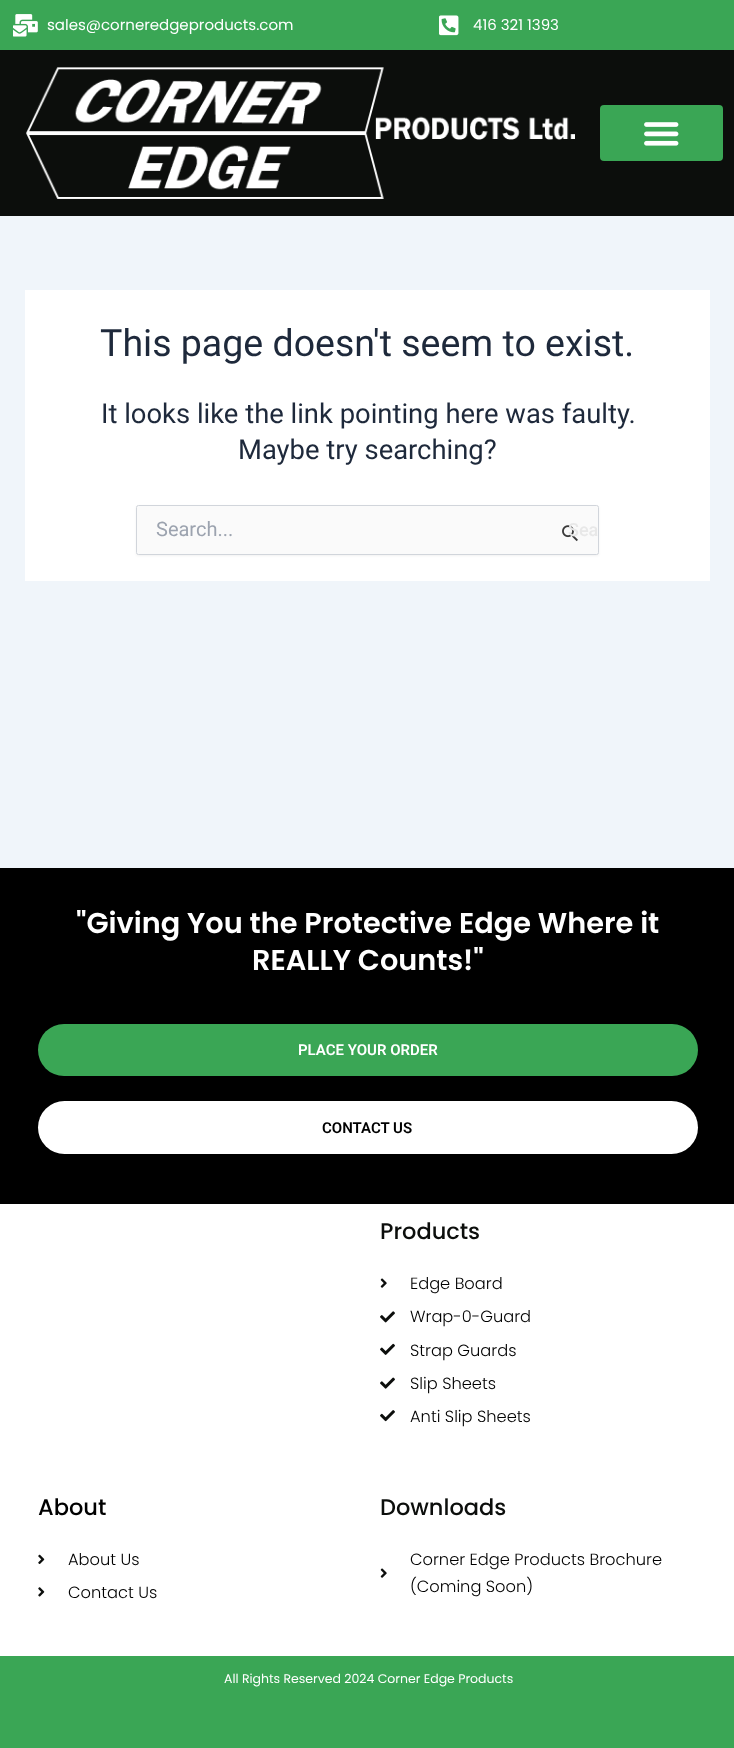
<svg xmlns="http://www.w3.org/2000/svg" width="734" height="1748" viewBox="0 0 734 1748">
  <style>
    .t1 { font: 15px Poppins; fill: #fff; }
    .t2 { font: 37.5px Roboto; fill: #1e293b; }
    .t3 { font: 27.4px Roboto; fill: #1e293b; }
    .t4 { font: 20px Roboto; fill: #9ca3af; }
    .t5 { font: 500 18px Roboto; fill: #e8e8e8; }
    .t6 { font: 600 28.75px Poppins; fill: #fff; }
    .t7 { font: 600 15px Roboto; fill: #fff; }
    .t8 { font: 600 15px Roboto; fill: #000; }
    .t9 { font: 500 22.5px Poppins; fill: #0c0e0c; }
    .t10 { font: 300 16.25px Poppins; fill: #000; }
    .t11 { font: 500 22.5px Poppins; fill: #000; }
    .t12 { font: 12.5px Poppins; fill: #fff; }
  </style>
  <rect width="100%" height="100%" fill="#f0f5fa"/>
  <rect x="0" y="0" width="734" height="50" fill="#3aa655"/>
  <image x="13" y="14" width="25" height="23" href="images/1.png"/>
  <text x="47" y="30" class="t1">sales@corneredgeproducts.com</text>
  <image x="439" y="15" width="20" height="21" href="images/2.png"/>
  <text x="473" y="30" class="t1">416 321 1393</text>
  <rect x="0" y="50" width="734" height="166" fill="#0c0e0c"/>
  <image x="26" y="67" width="549" height="132" href="images/3.png"/>
  <rect x="600" y="105" width="123" height="56" rx="4" fill="#3aa655"/>
  <image x="644" y="122" width="35" height="24" href="images/4.png"/>
  <rect x="25" y="290" width="685" height="291" fill="#fff"/>
  <text x="100" y="356" class="t2">This page doesn't seem to exist.</text>
  <text x="101" y="423" class="t3">It looks like the link pointing here was faulty.</text>
  <text x="238" y="459" class="t3">Maybe try searching?</text>
  <rect x="136" y="506" width="463" height="50" rx="2.5" fill="#0000000d" filter="blur(1px)"/>
  <rect x="136.5" y="505.5" width="462" height="49" rx="2" fill="#fafafa" stroke="#d1d5db"/>
  <text x="156" y="536" class="t4">Search...</text>
  <image x="562" y="525" width="16" height="17" href="images/5.png"/>
  <text x="568" y="536" class="t5">Sea</text>
  <rect x="0" y="868" width="734" height="336" fill="#000"/>
  <text x="76" y="933" class="t6">"Giving You the Protective Edge Where it</text>
  <text x="252" y="970" class="t6">REALLY Counts!"</text>
  <rect x="38" y="1024" width="660" height="52" rx="26" fill="#3aa655"/>
  <text x="298" y="1055" class="t7">PLACE YOUR ORDER</text>
  <rect x="38" y="1101" width="660" height="53" rx="26.5" fill="#fff"/>
  <text x="322" y="1133" class="t8">CONTACT US</text>
  <rect x="0" y="1204" width="734" height="452" fill="#fff"/>
  <text x="380" y="1239" class="t9">Products</text>
  <image x="380" y="1278" width="7" height="10" href="images/6.png"/>
  <text x="410" y="1289" class="t10">Edge Board</text>
  <image x="380" y="1311" width="15" height="12" href="images/7.png"/>
  <text x="410" y="1322" class="t10">Wrap-0-Guard</text>
  <image x="380" y="1343" width="15" height="12" href="images/8.png"/>
  <text x="410" y="1356" class="t10">Strap Guards</text>
  <image x="380" y="1377" width="15" height="12" href="images/9.png"/>
  <text x="410" y="1389" class="t10">Slip Sheets</text>
  <image x="380" y="1410" width="15" height="12" href="images/10.png"/>
  <text x="410" y="1422" class="t10">Anti Slip Sheets</text>
  <text x="38" y="1515" class="t11">About</text>
  <image x="38" y="1554" width="7" height="10" href="images/11.png"/>
  <text x="68" y="1565" class="t10">About Us</text>
  <image x="38" y="1587" width="7" height="10" href="images/12.png"/>
  <text x="68" y="1598" class="t10">Contact Us</text>
  <text x="380" y="1515" class="t9">Downloads</text>
  <image x="380" y="1568" width="7" height="10" href="images/6.png"/>
  <text x="410" y="1565" class="t10">Corner Edge Products Brochure</text>
  <text x="410" y="1592" class="t10">(Coming Soon)</text>
  <rect x="0" y="1656" width="734" height="92" fill="#3aa655"/>
  <text x="224" y="1683" class="t12">All Rights Reserved 2024 Corner Edge Products</text>
</svg>
